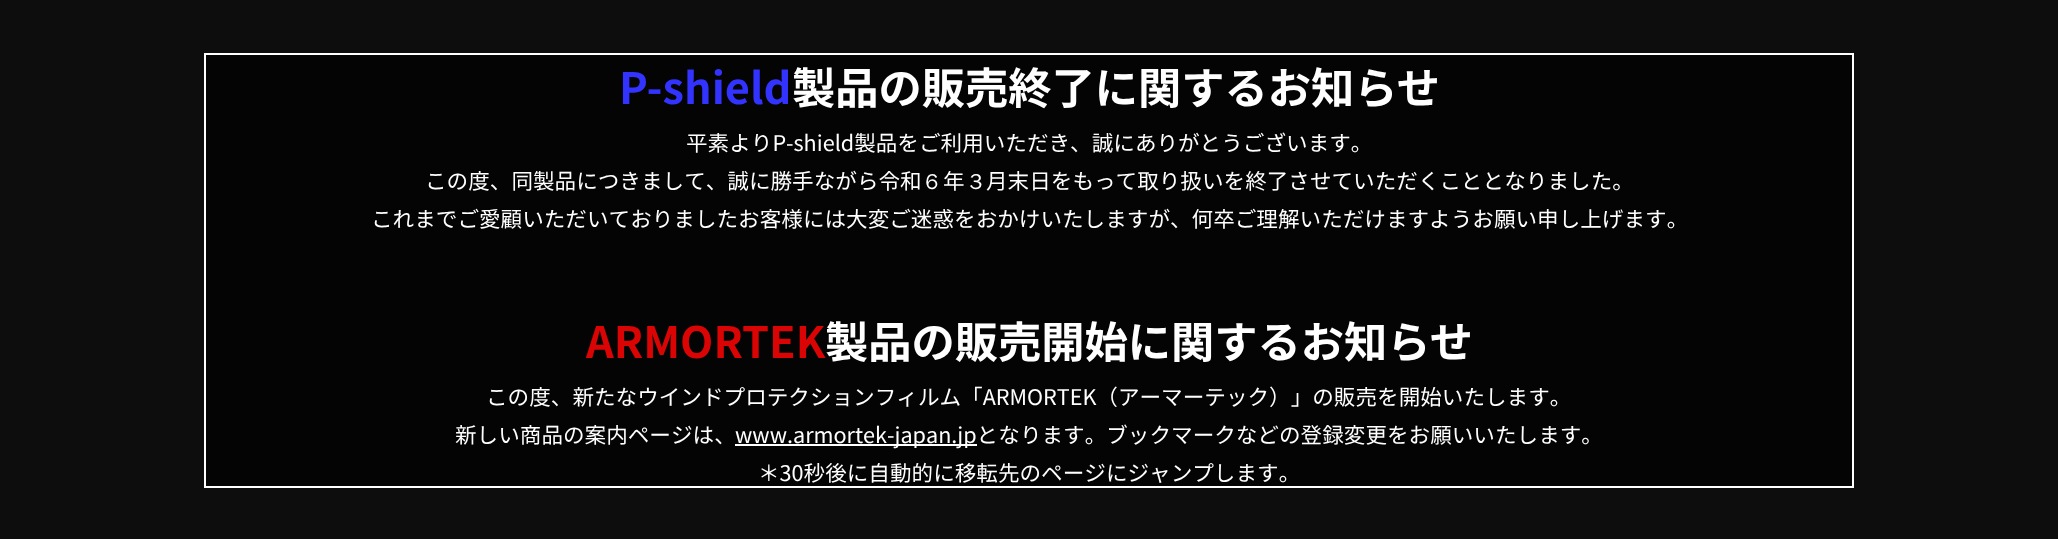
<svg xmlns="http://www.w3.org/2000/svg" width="2058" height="539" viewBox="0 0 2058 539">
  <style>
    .t1 { font: bold 43.25px Noto Sans CJK JP; fill: #33f; }
    .t2 { font: bold 43.25px Noto Sans CJK JP; fill: #fff; }
    .t3 { font: 21.6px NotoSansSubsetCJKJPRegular; fill: #fff; }
    .t4 { font: 500 21.6px WenQuanYi Zen Hei; fill: #fff; }
    .t5 { font: bold 43.25px Noto Sans CJK JP; fill: #da0404; }
  </style>
  <rect width="100%" height="100%" fill="#0d0d0d"/>
  <rect x="205" y="54" width="1648" height="433" fill="#040404" stroke="#fff" stroke-width="2"/>
  <text x="619" y="104" class="t1">P-shield</text>
  <text x="792" y="104" class="t2">製品の販売終了に関するお知らせ</text>
  <text x="686" y="151" class="t3">平素よりP-shield製品をご利用いただき、誠にありがとうございます。</text>
  <text x="425" y="189" class="t3">この度、同製品につきまして、誠に勝手ながら令和</text>
  <text x="921" y="189" class="t4">６</text>
  <text x="943" y="189" class="t3">年</text>
  <text x="965" y="189" class="t4">３</text>
  <text x="986" y="189" class="t3">月末日をもって取り扱いを終了させていただくこととなりました。</text>
  <text x="371" y="227" class="t3">これまでご愛顧いただいておりましたお客様には大変ご迷惑をおかけいたしますが、何卒ご理解いただけますようお願い申し上げます。</text>
  <text x="586" y="358" class="t5">ARMORTEK</text>
  <text x="825" y="358" class="t2">製品の販売開始に関するお知らせ</text>
  <text x="486" y="405" class="t3">この度、新たなウインドプロテクションフィルム「ARMORTEK（アーマーテック）」の販売を開始いたします。</text>
  <text x="455" y="443" class="t3">新しい商品の案内ページは、</text>
  <rect x="735" y="444" width="242" height="2" fill="#fff"/>
  <text x="735" y="443" class="t3">www.armortek-japan.jpとなります。ブックマークなどの登録変更をお願いいたします。</text>
  <text x="758" y="481" class="t3">＊30秒後に自動的に移転先のページにジャンプします。</text>
</svg>
